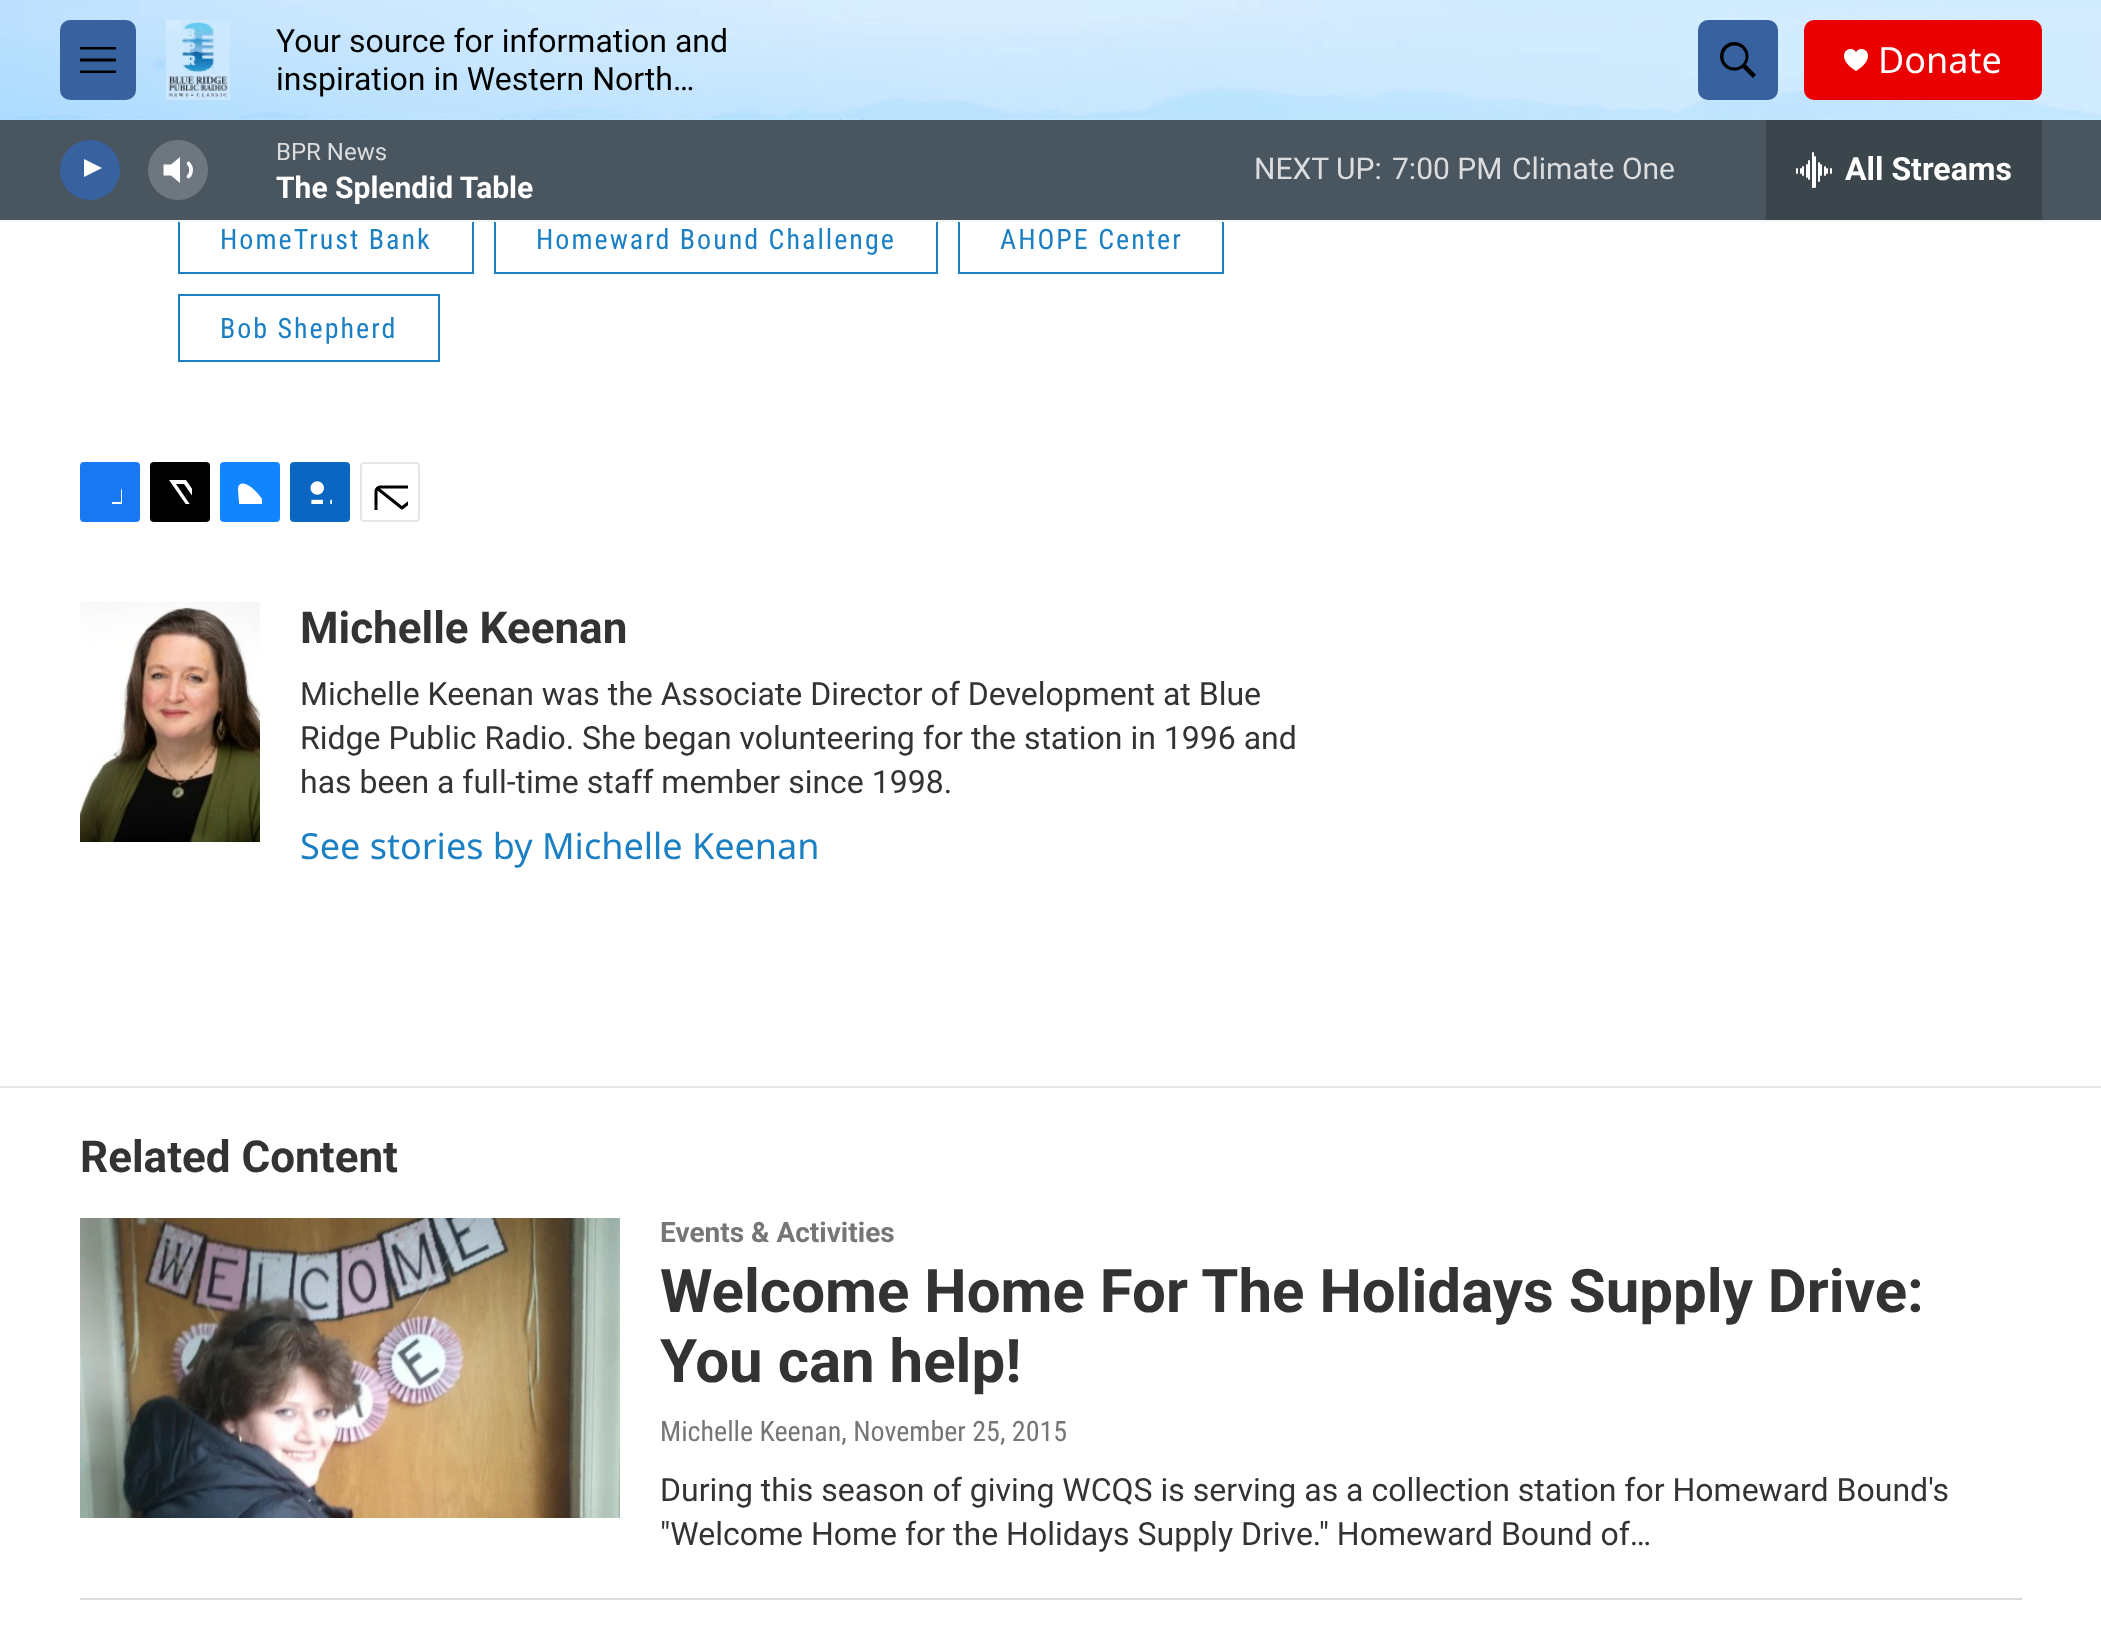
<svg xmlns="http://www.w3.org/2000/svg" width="2101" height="1626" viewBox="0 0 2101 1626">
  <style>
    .t1 { font: 32px Roboto; fill: #000; }
    .t2 { font: 36px Noto Sans; fill: #fff; }
    .t3 { font: 24px Roboto; fill: #dbdddf; }
    .t4 { font: bold 30px 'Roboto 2'; fill: #fff; }
    .t5 { font: 30px Roboto; fill: #dbdddf; }
    .t6 { font: bold 32px 'Roboto 2'; fill: #fff; }
    .t7 { font: 28px Roboto Condensed; letter-spacing: 2px; fill: #1a7fc3; }
    .t8 { font: bold 44px Roboto; fill: #333; }
    .t9 { font: 32px Roboto; fill: #333; }
    .t10 { font: 36px Noto Sans; fill: #1a7fc3; }
    .t11 { font: bold 28px Roboto; fill: #767676; }
    .t12 { font: bold 60px Roboto; fill: #333; }
    .t13 { font: 28px Roboto Condensed; fill: #767676; }
  </style>
  <defs>
    <clipPath id="clip1"><rect x="84" y="156" width="23" height="30"/></clipPath>
    <clipPath id="clip2"><rect x="98" y="480" width="24" height="24"/></clipPath>
    <clipPath id="clip3"><rect x="168" y="480" width="24" height="24"/></clipPath>
    <clipPath id="clip4"><rect x="372" y="474" width="36" height="36"/></clipPath>
  </defs>
  <rect width="100%" height="100%" fill="#fff"/>
  <rect x="179" y="205" width="294" height="68" fill="none" stroke="#1a7fc3" stroke-width="2"/>
  <rect x="495" y="205" width="442" height="68" fill="none" stroke="#1a7fc3" stroke-width="2"/>
  <rect x="959" y="205" width="264" height="68" fill="none" stroke="#1a7fc3" stroke-width="2"/>
  <rect x="0" y="220" width="2101" height="2" fill="#f5f5f5"/>
  <rect x="179" y="117" width="324" height="66" fill="none" stroke="#1a7fc3" stroke-width="2"/>
  <rect x="535" y="117" width="306" height="66" fill="none" stroke="#1a7fc3" stroke-width="2"/>
  <rect x="863" y="117" width="324" height="66" fill="none" stroke="#1a7fc3" stroke-width="2"/>
  <image x="0" y="0" width="2101" height="120" href="images/1.png"/>
  <rect x="60" y="20" width="76" height="80" rx="10" fill="#37629f"/>
  <path d="M80 61.5V58.5H116V61.5ZM80 49.5V47H116V49.5ZM80 73V70.5H116V73Z" fill="#000" fill-rule="evenodd"/>
  <image x="166" y="20" width="64" height="80" href="images/2.png"/>
  <text x="276" y="52" class="t1">Your source for information and</text>
  <text x="276" y="90" class="t1">inspiration in Western North…</text>
  <rect x="1698" y="20" width="80" height="80" rx="10" fill="#37629f"/>
  <image x="1720" y="42" width="36" height="36" href="images/3.png"/>
  <rect x="1804" y="20" width="238" height="80" rx="10" fill="#ea0000"/>
  <image x="1844" y="49" width="24" height="22" href="images/4.png"/>
  <text x="1878" y="73" class="t2">Donate</text>
  <rect x="0" y="120" width="2101" height="100" fill="#4a565f"/>
  <circle cx="90" cy="170" r="30" fill="#37629f"/>
  <g clip-path="url(#clip1)">
    <path d="M83 158.5L102 168L83 177.5Z" fill="#fff"/>
  </g>
  <path d="M180 157L171 164.5H163.5V175.5H171L180 183Z" fill="#fff"/>
  <path d="M188.5 163.5C192 167 192 173 188.5 176.5" fill="none" stroke="#fff" stroke-width="3.7" stroke-linecap="round" stroke-linejoin="round"/>
  <circle cx="178" cy="170" r="30" fill="#ffffff33"/>
  <text x="276" y="160" class="t3">BPR News</text>
  <text x="276" y="198" class="t4">The Splendid Table</text>
  <text x="1254" y="179" class="t5">NEXT UP:</text>
  <text x="1392" y="179" class="t5">7:00 PM</text>
  <text x="1512" y="179" class="t5">Climate One</text>
  <rect x="1766" y="120" width="276" height="100" fill="#3b454c"/>
  <image x="1796" y="152" width="36" height="36" href="images/5.png"/>
  <text x="1845" y="180" class="t6">All Streams</text>
  <text x="220" y="249" class="t7">HomeTrust Bank</text>
  <text x="536" y="249" class="t7">Homeward Bound Challenge</text>
  <text x="1000" y="249" class="t7">AHOPE Center</text>
  <rect x="179" y="295" width="260" height="66" fill="none" stroke="#1a7fc3" stroke-width="2"/>
  <text x="220" y="338" class="t7">Bob Shepherd</text>
  <rect x="80" y="462" width="60" height="60" rx="4" fill="#1778f2"/>
  <g clip-path="url(#clip2)">
    <path d="M131 522H121V512H112V502H121V491C123 482 132 480 140 481V490C129 490 131 493 131 502H140V507L139 512H131Z" fill="#fff"/>
  </g>
  <rect x="150" y="462" width="60" height="60" rx="4" fill="#000"/>
  <g clip-path="url(#clip3)">
    <path d="M204 505L210 514C210 516 211 519 209 520L184 484H176L202 522H197L194 517L190 522H184L192 513L169 480H186L201 502L210 492V498Z" fill="#fff"/>
  </g>
  <rect x="220" y="462" width="60" height="60" rx="4" fill="#1185fe"/>
  <image x="238" y="483" width="24" height="21" href="images/6.png"/>
  <rect x="290" y="462" width="60" height="60" rx="4" fill="#0a66c1"/>
  <image x="310" y="481" width="22" height="23" href="images/7.png"/>
  <rect x="361" y="463" width="58" height="58" rx="3" fill="none" stroke="#e6e6e6" stroke-width="2"/>
  <g clip-path="url(#clip4)">
    <path d="M428 518C428 520 426 521.5 424 521.5H380C378 521.5 376 520 376 518V491C376 489 378 487 380 487H424C426 487 428 489 428 491ZM426.5 488.5L402 508L377.5 488.5" fill="none" stroke="#000" stroke-width="3" stroke-linecap="round" stroke-linejoin="round"/>
  </g>
  <image x="80" y="602" width="180" height="240" href="images/8.png"/>
  <text x="300" y="643" class="t8">Michelle Keenan</text>
  <text x="300" y="705" class="t9">Michelle Keenan was the Associate Director of Development at Blue</text>
  <text x="300" y="749" class="t9">Ridge Public Radio. She began volunteering for the station in 1996 and</text>
  <text x="300" y="793" class="t9">has been a full-time staff member since 1998.</text>
  <text x="300" y="859" class="t10">See stories by Michelle Keenan</text>
  <rect x="0" y="1086" width="2101" height="2" fill="#e6e6e6"/>
  <text x="80" y="1172" class="t8">Related Content</text>
  <rect x="80" y="1598" width="1942" height="2" fill="#dcdcdc"/>
  <image x="80" y="1218" width="540" height="300" href="images/9.png"/>
  <text x="660" y="1242" class="t11">Events &amp; Activities</text>
  <text x="660" y="1312" class="t12">Welcome Home For The Holidays Supply Drive:</text>
  <text x="660" y="1382" class="t12">You can help!</text>
  <text x="660" y="1441" class="t13">Michelle Keenan, November 25, 2015</text>
  <text x="660" y="1501" class="t9">During this season of giving WCQS is serving as a collection station for Homeward Bound's</text>
  <text x="660" y="1545" class="t9">"Welcome Home for the Holidays Supply Drive." Homeward Bound of…</text>
</svg>
